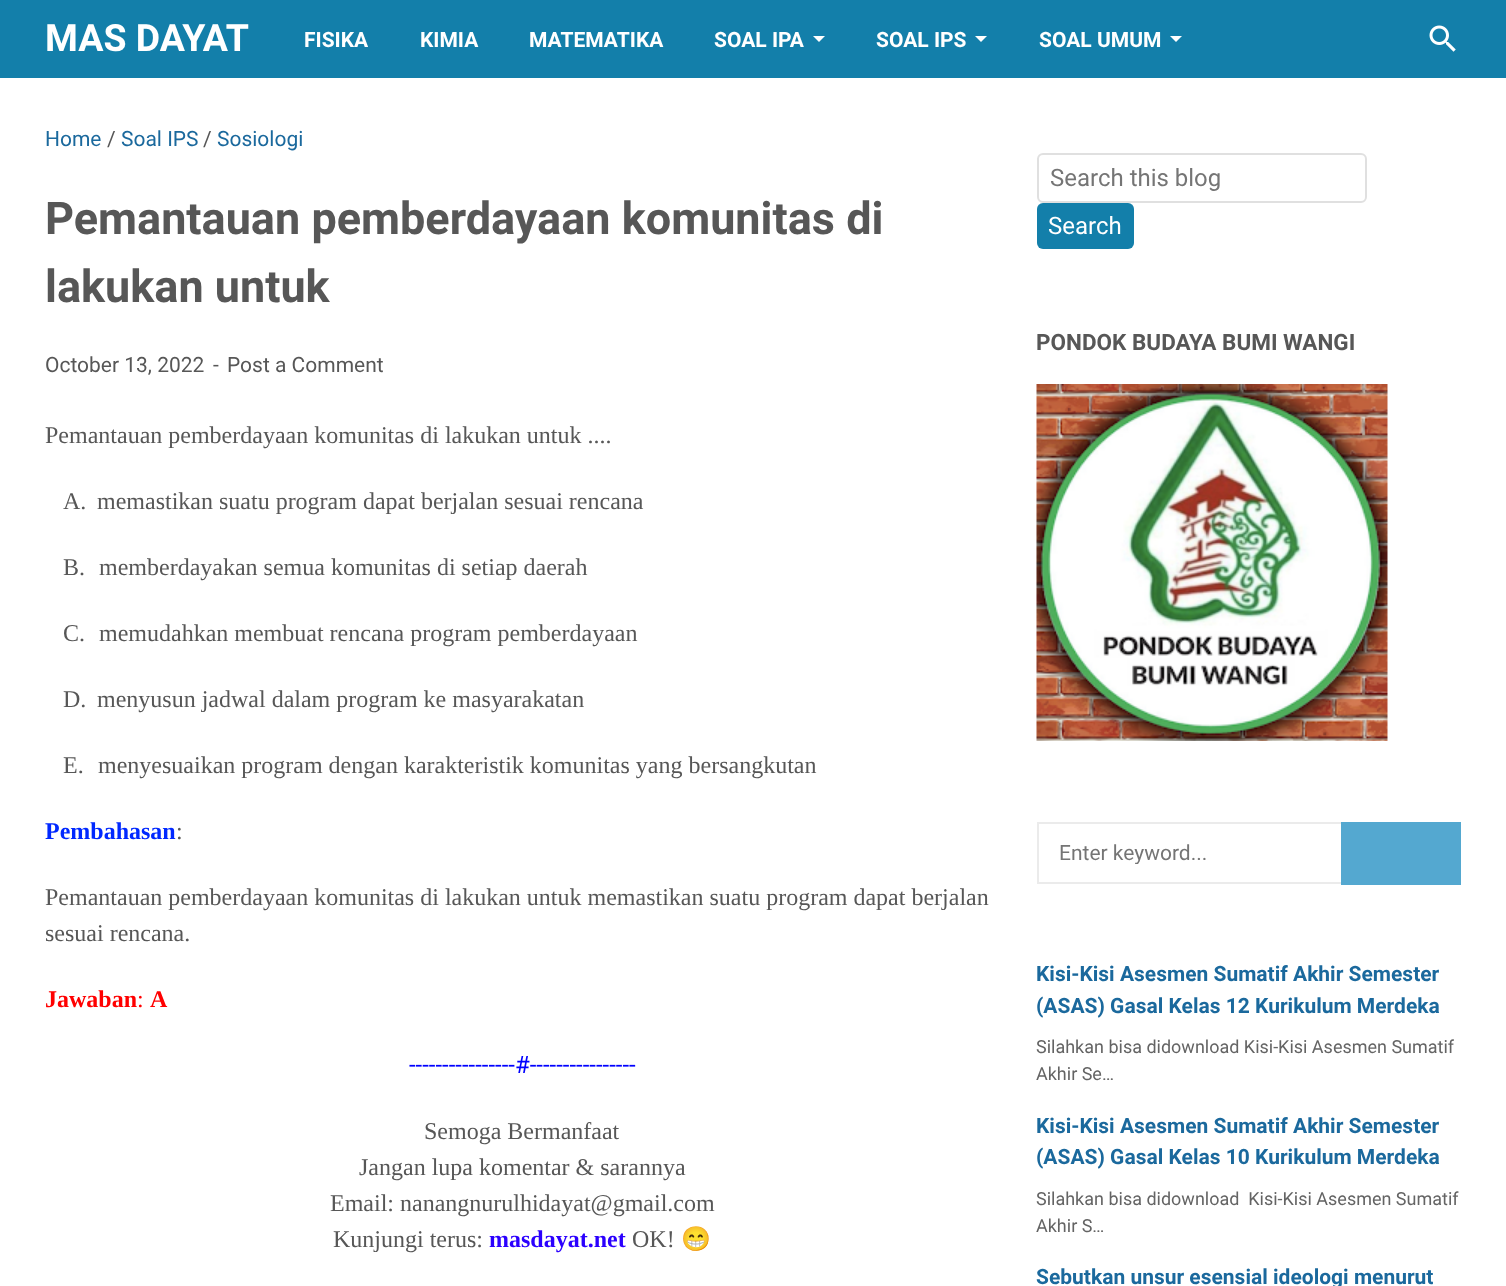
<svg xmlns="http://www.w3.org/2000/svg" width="1506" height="1286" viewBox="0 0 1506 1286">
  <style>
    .t1 { font: bold 37.5px Roboto; fill: #fff; }
    .t2 { font: bold 21px Roboto; fill: #fff; }
    .t3 { font: 21px Roboto; fill: #1b699d; }
    .t4 { font: 21px Roboto; fill: #575757; }
    .t5 { font: bold 45px Roboto; fill: #575757; }
    .t6 { font: 24px Liberation Serif; fill: #575757; }
    .t7 { font: bold 24px Liberation Serif; fill: #0028ff; }
    .t8 { font: bold 24px Liberation Serif; fill: #f00; }
    .t9 { font: 24px Liberation Serif; fill: #f00; }
    .t10 { font: 24px Roboto; fill: #00f; }
    .t11 { font: bold 24px Liberation Serif; fill: #2b00fe; }
    .t12 { font: 24px Noto Color Emoji; fill: #575757; }
    .t13 { font: 24px Roboto; fill: #757575; }
    .t14 { font: 24px Roboto; fill: #fff; }
    .t15 { font: bold 22.5px Roboto; fill: #575757; }
    .t16 { font: 21px Roboto; fill: #757575; }
    .t17 { font: bold 21px Roboto; fill: #1b699d; }
    .t18 { font: 18px Roboto; fill: #646464; }
  </style>
  <defs>
    <clipPath id="clip1"><rect x="1059" y="840" width="380" height="24"/></clipPath>
  </defs>
  <rect width="100%" height="100%" fill="#fff"/>
  <rect x="0" y="0" width="1506" height="78" fill="#137faa"/>
  <text x="45" y="51" class="t1">MAS DAYAT</text>
  <text x="304" y="47" class="t2">FISIKA</text>
  <text x="420" y="47" class="t2">KIMIA</text>
  <text x="529" y="47" class="t2">MATEMATIKA</text>
  <text x="714" y="47" class="t2">SOAL IPA</text>
  <path d="M813 36H825L819 42Z" fill="#fff"/>
  <text x="876" y="47" class="t2">SOAL IPS</text>
  <path d="M975 36H987L981 42Z" fill="#fff"/>
  <text x="1039" y="47" class="t2">SOAL UMUM</text>
  <path d="M1170 36H1182L1176 42Z" fill="#fff"/>
  <image x="1429" y="25" width="27" height="27" href="images/1.png"/>
  <text x="45" y="146" class="t3">Home</text>
  <text x="107" y="146" class="t4">/</text>
  <text x="121" y="146" class="t3">Soal IPS</text>
  <text x="203" y="146" class="t4">/</text>
  <text x="217" y="146" class="t3">Sosiologi</text>
  <text x="45" y="234" class="t5">Pemantauan pemberdayaan komunitas di</text>
  <text x="45" y="302" class="t5">lakukan untuk</text>
  <text x="45" y="372" class="t4">October 13, 2022</text>
  <text x="213" y="372" class="t4">-</text>
  <text x="227" y="372" class="t4">Post a Comment</text>
  <text x="45" y="443" class="t6">Pemantauan pemberdayaan komunitas di lakukan untuk ....</text>
  <text x="63" y="509" class="t6">A.</text>
  <text x="97" y="509" class="t6">memastikan suatu program dapat berjalan sesuai rencana</text>
  <text x="63" y="575" class="t6">B.</text>
  <text x="99" y="575" class="t6">memberdayakan semua komunitas di setiap daerah</text>
  <text x="63" y="641" class="t6">C.</text>
  <text x="99" y="641" class="t6">memudahkan membuat rencana program pemberdayaan</text>
  <text x="63" y="707" class="t6">D.</text>
  <text x="97" y="707" class="t6">menyusun jadwal dalam program ke masyarakatan</text>
  <text x="63" y="773" class="t6">E.</text>
  <text x="98" y="773" class="t6">menyesuaikan program dengan karakteristik komunitas yang bersangkutan</text>
  <text x="45" y="839" class="t7">Pembahasan</text>
  <text x="176" y="839" class="t6">:</text>
  <text x="45" y="905" class="t6">Pemantauan pemberdayaan komunitas di lakukan untuk memastikan suatu program dapat berjalan</text>
  <text x="45" y="941" class="t6">sesuai rencana.</text>
  <text x="45" y="1007" class="t8">Jawaban</text>
  <text x="137" y="1007" class="t9">:</text>
  <text x="150" y="1007" class="t8">A</text>
  <text x="409" y="1073" class="t10">----------------#----------------</text>
  <text x="424" y="1139" class="t6">Semoga Bermanfaat</text>
  <text x="359" y="1175" class="t6">Jangan lupa komentar &amp; sarannya</text>
  <text x="330" y="1211" class="t6">Email: nanangnurulhidayat@gmail.com</text>
  <text x="333" y="1247" class="t6">Kunjungi terus:</text>
  <text x="489" y="1247" class="t11">masdayat.net</text>
  <text x="632" y="1247" class="t6">OK!</text>
  <text x="681" y="1247" class="t12">😁</text>
  <rect x="1038" y="154" width="328" height="48" rx="5" fill="none" stroke="#e0e0e0" stroke-width="2"/>
  <text x="1050" y="186" class="t13">Search this blog</text>
  <rect x="1037" y="203" width="97" height="46" rx="6" fill="#137faa"/>
  <text x="1048" y="234" class="t14">Search</text>
  <text x="1036" y="350" class="t15">PONDOK BUDAYA BUMI WANGI</text>
  <image x="1036" y="384" width="352" height="357" href="images/2.png"/>
  <rect x="1038" y="823" width="422" height="60" fill="none" stroke="#ebebeb" stroke-width="2"/>
  <g clip-path="url(#clip1)">
    <text x="1059" y="860" class="t16">Enter keyword...</text>
  </g>
  <rect x="1341" y="822" width="120" height="63" fill="#54a8d0"/>
  <text x="1036" y="981" class="t17">Kisi-Kisi Asesmen Sumatif Akhir Semester</text>
  <text x="1036" y="1013" class="t17">(ASAS) Gasal Kelas 12 Kurikulum Merdeka</text>
  <text x="1036" y="1053" class="t18">Silahkan bisa didownload Kisi-Kisi Asesmen Sumatif</text>
  <text x="1036" y="1080" class="t18">Akhir Se…</text>
  <text x="1036" y="1133" class="t17">Kisi-Kisi Asesmen Sumatif Akhir Semester</text>
  <text x="1036" y="1164" class="t17">(ASAS) Gasal Kelas 10 Kurikulum Merdeka</text>
  <text x="1036" y="1205" class="t18" xml:space="preserve">Silahkan bisa didownload  Kisi-Kisi Asesmen Sumatif</text>
  <text x="1036" y="1232" class="t18">Akhir S…</text>
  <text x="1036" y="1284" class="t17">Sebutkan unsur esensial ideologi menurut</text>
</svg>
